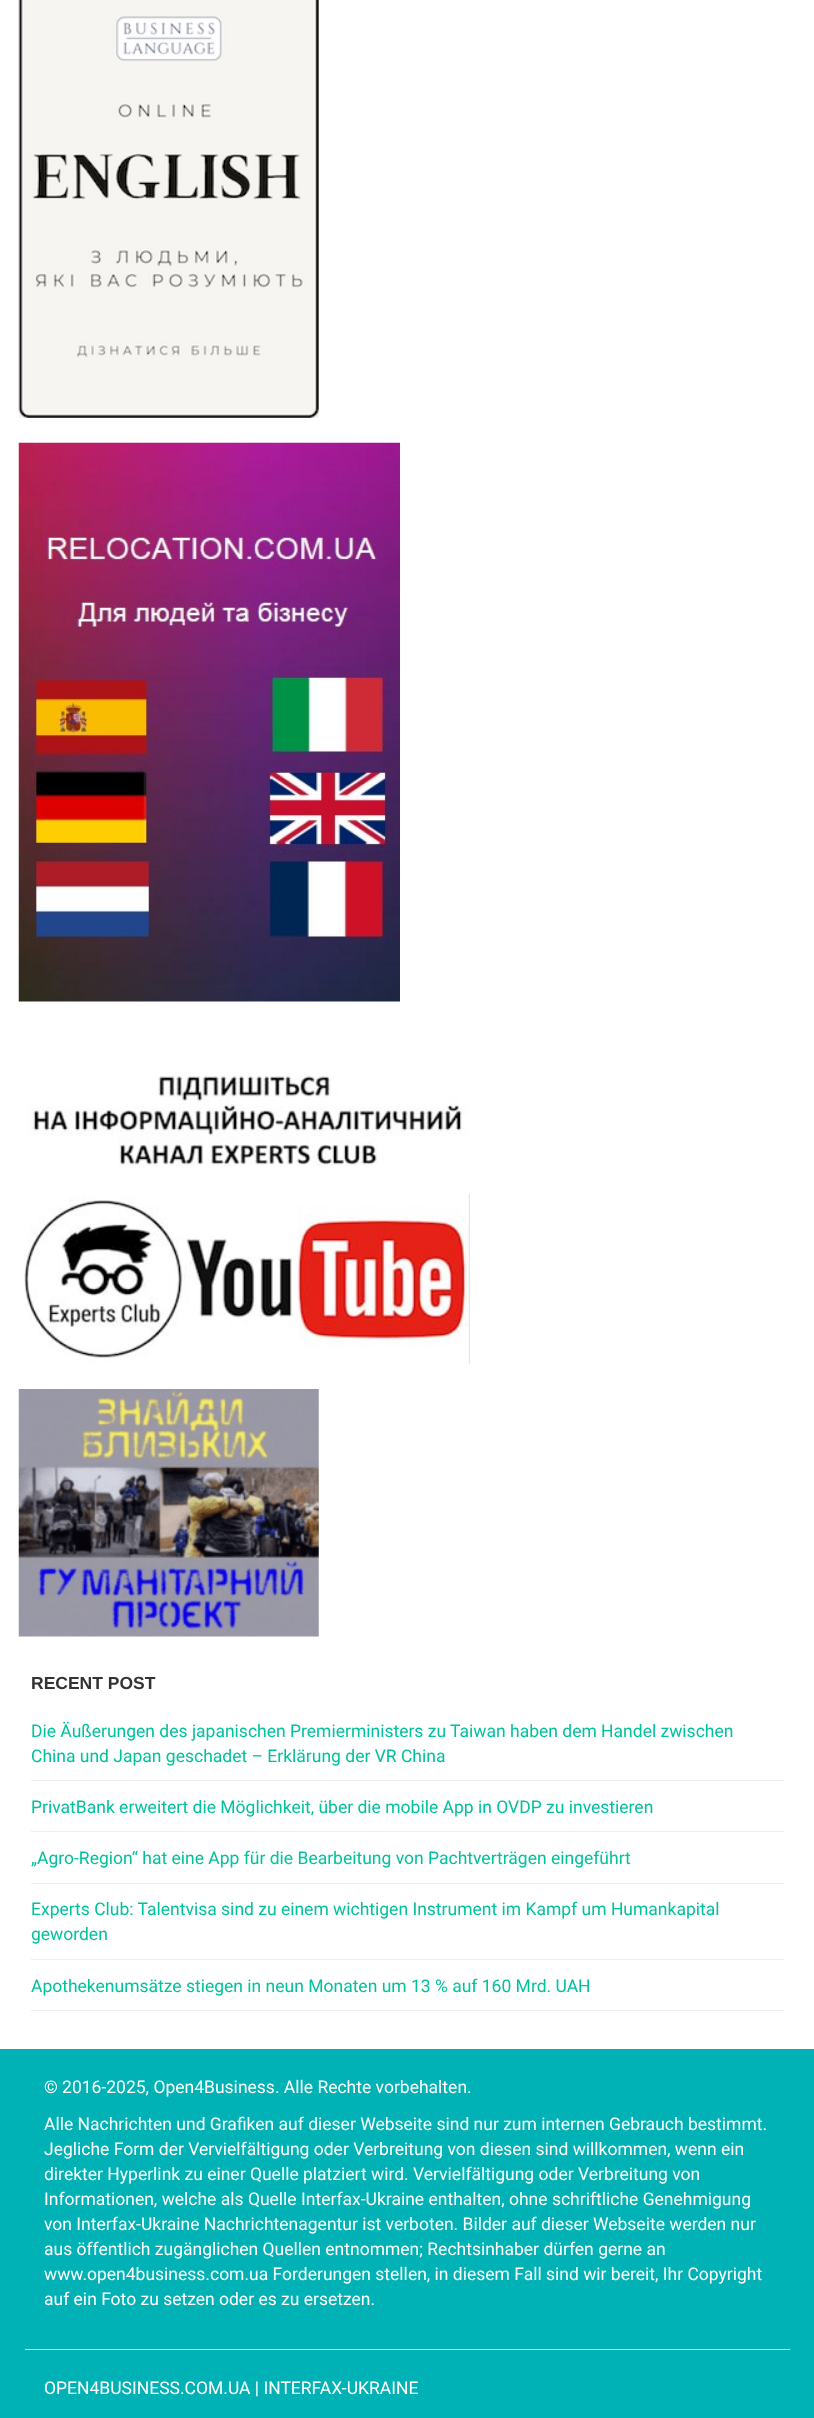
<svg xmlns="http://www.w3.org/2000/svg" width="814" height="2418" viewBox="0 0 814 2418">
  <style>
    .t1 { font: bold 17.5px Liberation Sans; fill: #333; }
    .t2 { font: 17.5px Roboto; fill: #02c29d; }
    .t3 { font: 17.5px Roboto; fill: #fff; }
  </style>
  <rect width="100%" height="100%" fill="#fff"/>
  <image x="18" y="0" width="301" height="418" href="images/1.png"/>
  <image x="18" y="442" width="382" height="560" href="images/2.png"/>
  <image x="24" y="1076" width="446" height="288" href="images/3.png"/>
  <image x="18" y="1389" width="301" height="248" href="images/4.png"/>
  <text x="31" y="1689" class="t1">RECENT POST</text>
  <rect x="31" y="1780" width="753" height="1" fill="#eee"/>
  <text x="31" y="1737" class="t2">Die Äußerungen des japanischen Premierministers zu Taiwan haben dem Handel zwischen</text>
  <text x="31" y="1762" class="t2">China und Japan geschadet – Erklärung der VR China</text>
  <rect x="31" y="1831" width="753" height="1" fill="#eee"/>
  <text x="31" y="1813" class="t2">PrivatBank erweitert die Möglichkeit, über die mobile App in OVDP zu investieren</text>
  <rect x="31" y="1883" width="753" height="1" fill="#eee"/>
  <text x="31" y="1864" class="t2">„Agro-Region“ hat eine App für die Bearbeitung von Pachtverträgen eingeführt</text>
  <rect x="31" y="1959" width="753" height="1" fill="#eee"/>
  <text x="31" y="1915" class="t2">Experts Club: Talentvisa sind zu einem wichtigen Instrument im Kampf um Humankapital</text>
  <text x="31" y="1940" class="t2">geworden</text>
  <rect x="31" y="2010" width="753" height="1" fill="#eee"/>
  <text x="31" y="1992" class="t2">Apothekenumsätze stiegen in neun Monaten um 13 % auf 160 Mrd. UAH</text>
  <rect x="0" y="2049" width="814" height="369" fill="#00b2b5"/>
  <text x="44" y="2093" class="t3">© 2016-2025, Open4Business. Alle Rechte vorbehalten.</text>
  <text x="44" y="2130" class="t3">Alle Nachrichten und Grafiken auf dieser Webseite sind nur zum internen Gebrauch bestimmt.</text>
  <text x="44" y="2155" class="t3">Jegliche Form der Vervielfältigung oder Verbreitung von diesen sind willkommen, wenn ein</text>
  <text x="44" y="2180" class="t3">direkter Hyperlink zu einer Quelle platziert wird. Vervielfältigung oder Verbreitung von</text>
  <text x="44" y="2205" class="t3">Informationen, welche als Quelle Interfax-Ukraine enthalten, ohne schriftliche Genehmigung</text>
  <text x="44" y="2230" class="t3">von Interfax-Ukraine Nachrichtenagentur ist verboten. Bilder auf dieser Webseite werden nur</text>
  <text x="44" y="2255" class="t3">aus öffentlich zugänglichen Quellen entnommen; Rechtsinhaber dürfen gerne an</text>
  <text x="44" y="2280" class="t3">www.open4business.com.ua Forderungen stellen, in diesem Fall sind wir bereit, Ihr Copyright</text>
  <text x="44" y="2305" class="t3">auf ein Foto zu setzen oder es zu ersetzen.</text>
  <rect x="25" y="2349" width="765" height="1" fill="#eee"/>
  <text x="44" y="2394" class="t3">OPEN4BUSINESS.COM.UA | INTERFAX-UKRAINE</text>
</svg>
